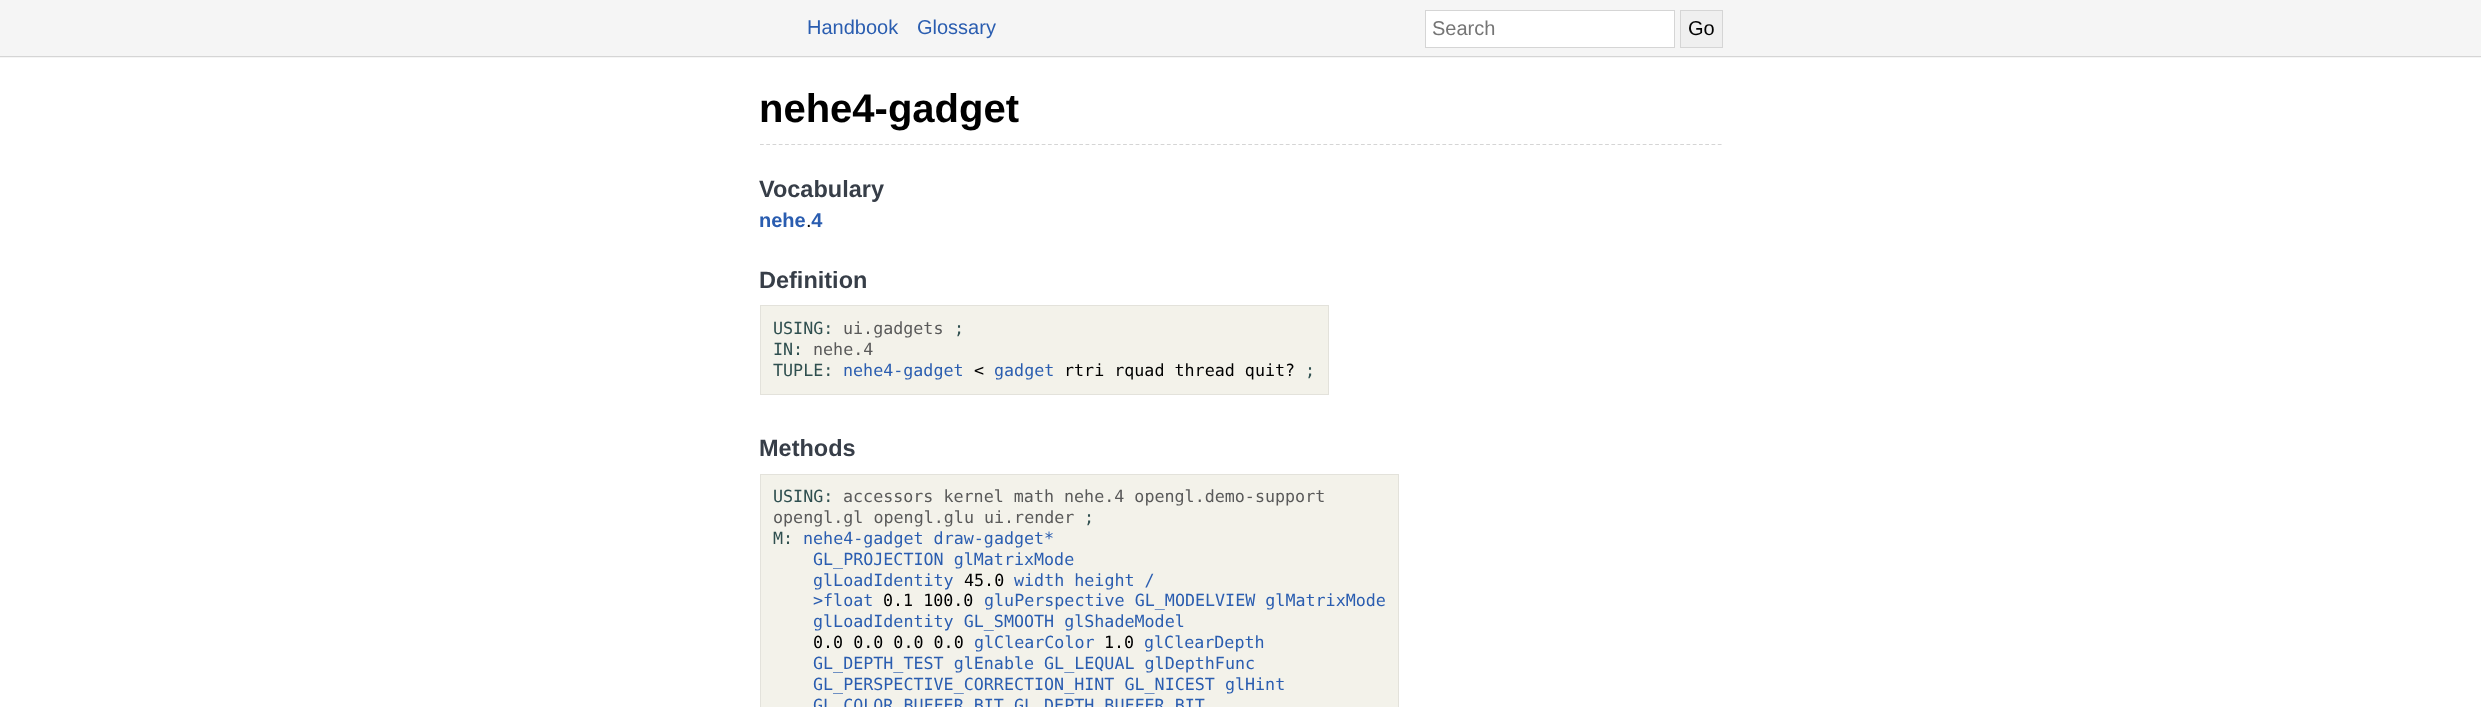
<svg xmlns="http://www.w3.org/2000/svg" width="2481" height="707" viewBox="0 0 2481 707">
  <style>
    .t1 { font: 20px Liberation Sans; fill: #2a5db0; }
    .t2 { font: 20px Liberation Sans; fill: #757575; }
    .t3 { font: 20px Liberation Sans; fill: #000; }
    .t4 { font: bold 40px Liberation Sans; fill: #000; }
    .t5 { font: bold 23.5px Liberation Sans; fill: #373e48; }
    .t6 { font: bold 20px Liberation Sans; fill: #2a5db0; }
    .t7 { font: 16.7px DejaVu Sans Mono; fill: #2f4f4f; }
    .t8 { font: 16.7px DejaVu Sans Mono; fill: #595959; }
    .t9 { font: 16.7px DejaVu Sans Mono; fill: #2a5db0; }
    .t10 { font: 16.7px DejaVu Sans Mono; fill: #000; }
  </style>
  <rect width="100%" height="100%" fill="#fff"/>
  <rect x="0" y="0" width="2481" height="58" fill="#f5f5f5"/>
  <rect x="0" y="56" width="2481" height="1" fill="#d5d5d5"/>
  <text x="807" y="34" class="t1">Handbook</text>
  <text x="917" y="34" class="t1">Glossary</text>
  <rect x="1425.5" y="10.5" width="249" height="37" fill="#fff" stroke="#d5d5d5"/>
  <text x="1432" y="35" class="t2">Search</text>
  <rect x="1680.5" y="10.5" width="42" height="37" fill="#efefef" stroke="#d5d5d5"/>
  <text x="1688" y="35" class="t3">Go</text>
  <path d="M760 144.5H1722.5" fill="none" stroke="#d5d5d5" stroke-width="1.2" stroke-dasharray="3.75 2.51"/>
  <text x="759" y="122" class="t4">nehe4-gadget</text>
  <text x="759" y="197" class="t5">Vocabulary</text>
  <text x="759" y="227" class="t6">nehe 4</text>
  <text x="806" y="227" class="t3">.</text>
  <text x="759" y="288" class="t5">Definition</text>
  <rect x="760.5" y="305.5" width="568" height="89" fill="#f3f2ea" stroke="#e3e2db"/>
  <text x="773" y="334" class="t7">USING:</text>
  <text x="843" y="334" class="t8">ui.gadgets</text>
  <text x="954" y="334" class="t7">;</text>
  <text x="773" y="355" class="t7">IN:</text>
  <text x="813" y="355" class="t8">nehe.4</text>
  <text x="773" y="376" class="t7">TUPLE:</text>
  <text x="843" y="376" class="t9">nehe4-gadget</text>
  <text x="974" y="376" class="t10">&lt;</text>
  <text x="994" y="376" class="t9">gadget</text>
  <text x="1064" y="376" class="t10">rtri rquad thread quit?</text>
  <text x="1305" y="376" class="t7">;</text>
  <text x="759" y="456" class="t5">Methods</text>
  <rect x="760.5" y="474.5" width="638" height="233" fill="#f3f2ea" stroke="#e3e2db"/>
  <text x="773" y="502" class="t7">USING:</text>
  <text x="843" y="502" class="t8">accessors kernel math nehe.4 opengl.demo-support</text>
  <text x="773" y="523" class="t8">opengl.gl opengl.glu ui.render</text>
  <text x="1084" y="523" class="t7">;</text>
  <text x="773" y="544" class="t7">M:</text>
  <text x="803" y="544" class="t9">nehe4-gadget draw-gadget*</text>
  <text x="813" y="565" class="t9">GL_PROJECTION glMatrixMode</text>
  <text x="813" y="586" class="t9">glLoadIdentity</text>
  <text x="964" y="586" class="t10">45.0</text>
  <text x="1014" y="586" class="t9">width height /</text>
  <text x="813" y="606" class="t9">&gt;float</text>
  <text x="883" y="606" class="t10">0.1 100.0</text>
  <text x="984" y="606" class="t9">gluPerspective GL_MODELVIEW glMatrixMode</text>
  <text x="813" y="627" class="t9">glLoadIdentity GL_SMOOTH glShadeModel</text>
  <text x="813" y="648" class="t10">0.0 0.0 0.0 0.0</text>
  <text x="974" y="648" class="t9">glClearColor</text>
  <text x="1104" y="648" class="t10">1.0</text>
  <text x="1144" y="648" class="t9">glClearDepth</text>
  <text x="813" y="669" class="t9">GL_DEPTH_TEST glEnable GL_LEQUAL glDepthFunc</text>
  <text x="813" y="690" class="t9">GL_PERSPECTIVE_CORRECTION_HINT GL_NICEST glHint</text>
  <text x="813" y="711" class="t9">GL_COLOR_BUFFER_BIT GL_DEPTH_BUFFER_BIT</text>
</svg>
